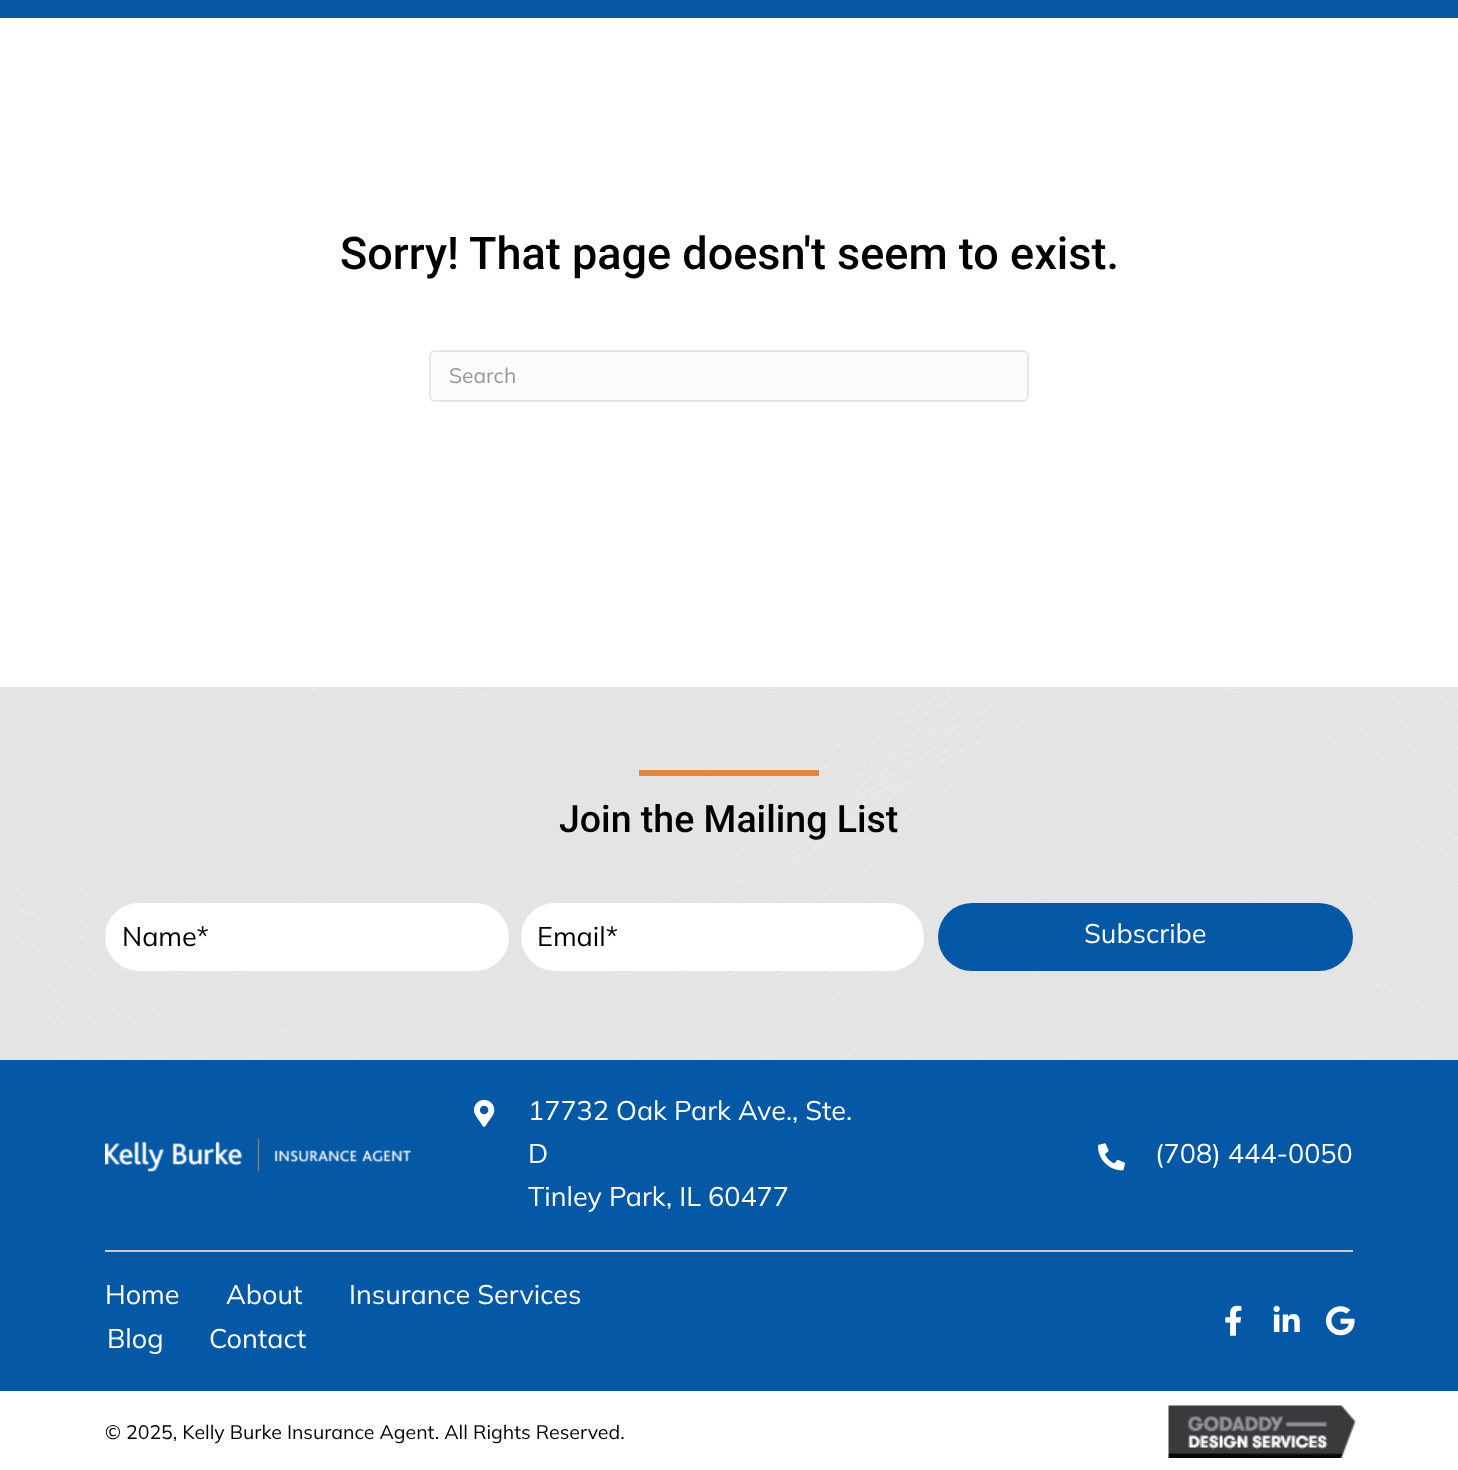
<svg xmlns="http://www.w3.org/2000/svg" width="1458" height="1470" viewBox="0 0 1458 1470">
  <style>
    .t1 { font: 500 45px Roboto; fill: #000; }
    .t2 { font: 21px Mulish; fill: #979797; }
    .t3 { font: 500 37.5px Roboto; fill: #000; }
    .t4 { font: 27px Mulish; fill: #000; }
    .t5 { font: 27px Mulish; fill: #fff; }
    .t6 { font: 19.5px Mulish; fill: #000; }
  </style>
  <rect width="100%" height="100%" fill="#fff"/>
  <rect x="0" y="0" width="1458" height="18" fill="#0558a6"/>
  <text x="340" y="269" class="t1">Sorry! That page doesn't seem to exist.</text>
  <rect x="430" y="351" width="598" height="50" rx="5" fill="#fcfcfc" stroke="#e6e6e6" stroke-width="2"/>
  <text x="449" y="383" class="t2">Search</text>
  <image x="0" y="687" width="1458" height="373" href="images/1.png"/>
  <rect x="639" y="770" width="180" height="6" fill="#e18740"/>
  <text x="559" y="832" class="t3">Join the Mailing List</text>
  <rect x="106" y="904" width="402" height="66" rx="33" fill="#fff" stroke="#fff" stroke-width="2"/>
  <text x="122" y="946" class="t4">Name*</text>
  <rect x="522" y="904" width="401" height="66" rx="33" fill="#fff" stroke="#fff" stroke-width="2"/>
  <text x="537" y="946" class="t4">Email*</text>
  <rect x="938" y="903" width="415" height="68" rx="34" fill="#0558a6"/>
  <text x="1084" y="943" class="t5">Subscribe</text>
  <rect x="0" y="1060" width="1458" height="331" fill="#0558a6"/>
  <image x="105" y="1138" width="306" height="34" href="images/2.png"/>
  <image x="474" y="1099" width="21" height="28" href="images/3.png"/>
  <text x="528" y="1120" class="t5">17732 Oak Park Ave., Ste.</text>
  <text x="528" y="1163" class="t5">D</text>
  <text x="528" y="1206" class="t5">Tinley Park, IL 60477</text>
  <image x="1098" y="1143" width="27" height="28" href="images/4.png"/>
  <text x="1155" y="1163" class="t5">(708) 444-0050</text>
  <rect x="105" y="1250" width="1248" height="2" fill="#ccc"/>
  <text x="105" y="1304" class="t5">Home</text>
  <text x="226" y="1304" class="t5">About</text>
  <text x="349" y="1304" class="t5">Insurance Services</text>
  <text x="107" y="1348" class="t5">Blog</text>
  <text x="209" y="1348" class="t5">Contact</text>
  <image x="1225" y="1305" width="17" height="31" href="images/5.png"/>
  <image x="1273" y="1305" width="27" height="27" href="images/6.png"/>
  <image x="1326" y="1306" width="29" height="30" href="images/7.png"/>
  <text x="105" y="1439" class="t6">© 2025, Kelly Burke Insurance Agent. All Rights Reserved.</text>
  <image x="1168" y="1405" width="189" height="53" href="images/8.png"/>
</svg>
